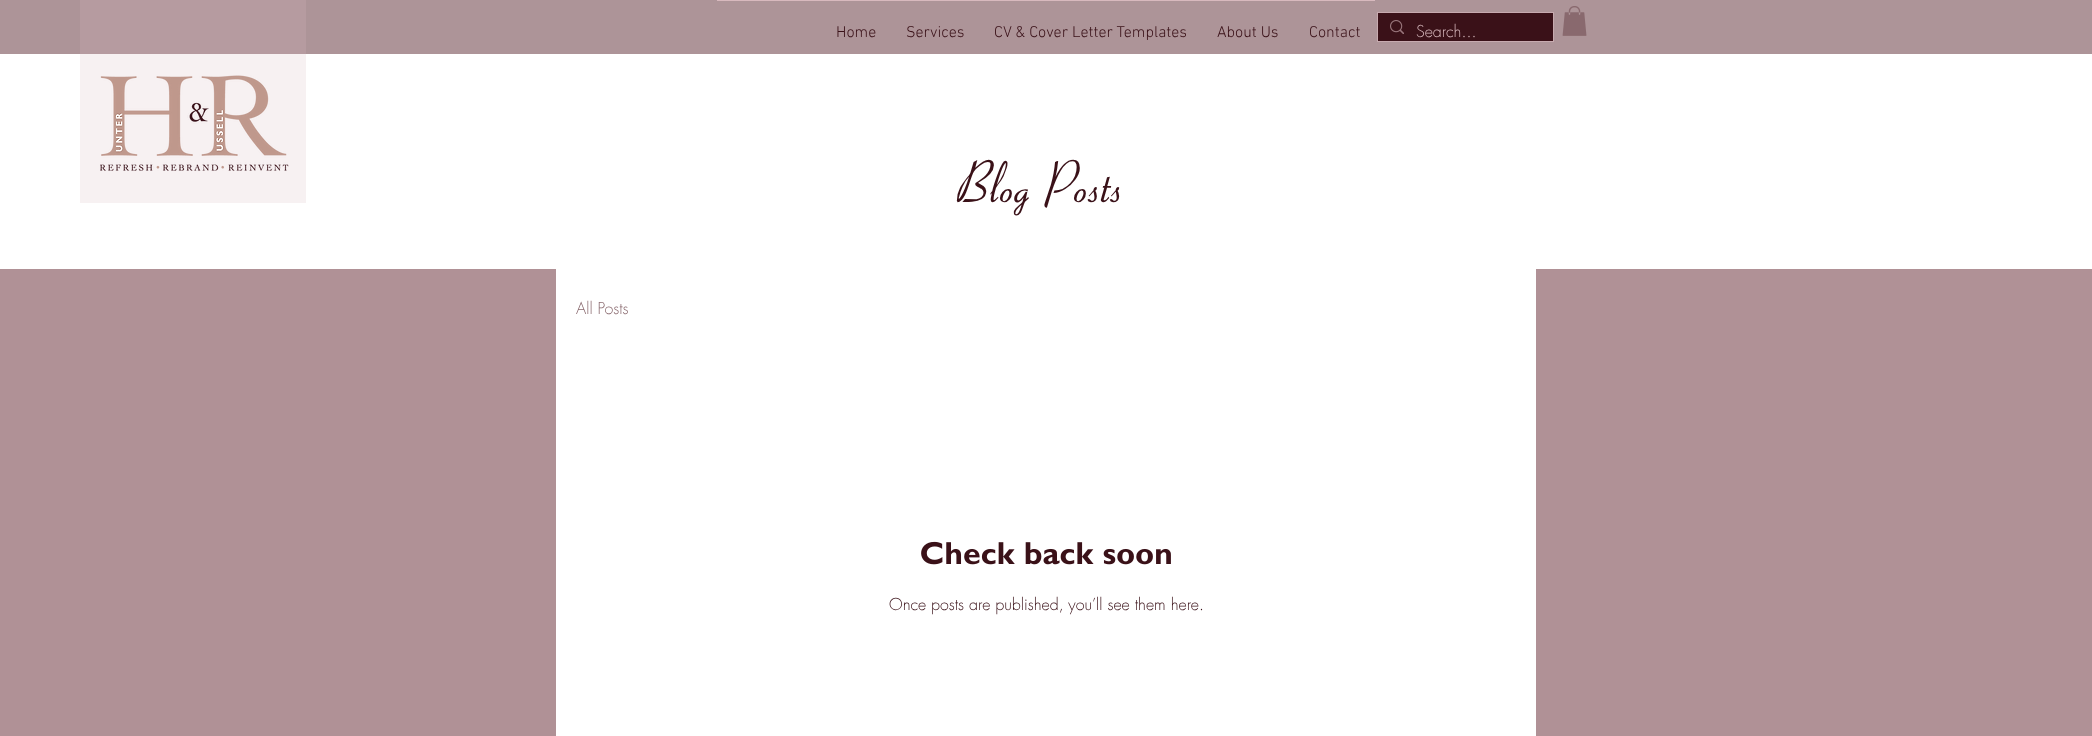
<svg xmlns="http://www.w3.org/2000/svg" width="2092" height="736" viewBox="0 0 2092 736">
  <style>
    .t1 { font: 300 16px 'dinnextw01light'; fill: #3a1118; }
    .t2 { font: 300 16px futura; fill: #d8b9be; }
    .t3 { font: 600 60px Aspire; fill: #3a1118; }
    .t4 { font: 300 16px futura; fill: #89696e; }
    .t5 { font: 300 16px futura; fill: #3a1118; }
  </style>
  <rect width="100%" height="100%" fill="#b09196"/>
  <rect x="0" y="0" width="2092" height="54" fill="#ad9498"/>
  <rect x="80" y="0" width="226" height="54" fill="#b69ba0"/>
  <rect x="717" y="0" width="658" height="1" fill="#d8b9be"/>
  <text x="836" y="37" class="t1">Home</text>
  <text x="906" y="37" class="t1">Services</text>
  <text x="994" y="37" class="t1">CV &amp; Cover Letter Templates</text>
  <text x="1217" y="37" class="t1">About Us</text>
  <text x="1309" y="37" class="t1">Contact</text>
  <rect x="1377.5" y="12.5" width="176" height="29" fill="none" stroke="#c7aaaf"/>
  <rect x="1378" y="13" width="175" height="28" fill="#3a1118"/>
  <image x="1390" y="20" width="14" height="14" href="images/1.png"/>
  <text x="1416" y="37" class="t2">Search...</text>
  <image x="1562" y="6" width="25" height="30" href="images/2.png"/>
  <rect x="0" y="54" width="2092" height="215" fill="#fff"/>
  <rect x="80" y="54" width="226" height="149" fill="#f7f1f2"/>
  <image x="100" y="75" width="189" height="96" href="images/3.png"/>
  <text x="962" y="202" class="t3">Blog Posts</text>
  <rect x="556" y="269" width="980" height="467" fill="#fff"/>
  <text x="576" y="314" class="t4">All Posts</text>
  <image x="921" y="541" width="250" height="24" href="images/4.png"/>
  <text x="889" y="610" class="t5">Once posts are published, you’ll see them here.</text>
</svg>
